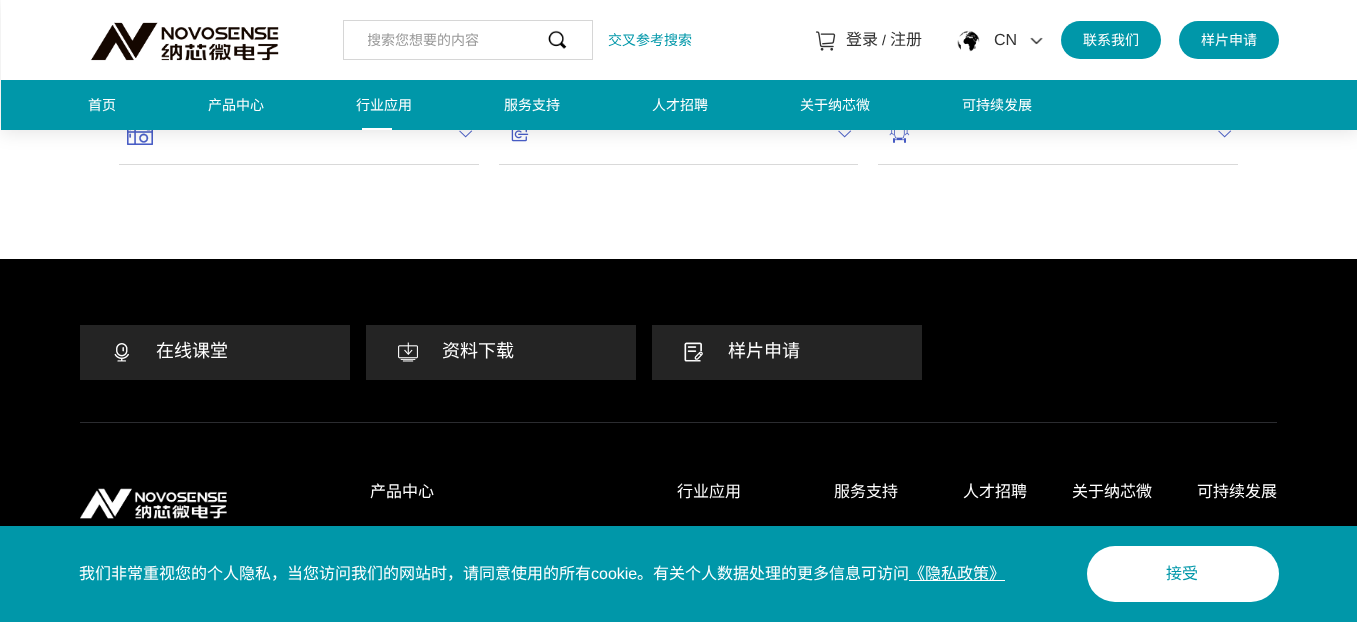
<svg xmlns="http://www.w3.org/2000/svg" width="1357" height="622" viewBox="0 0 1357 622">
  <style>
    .t1 { font: 14px Noto Sans CJK SC; fill: #999; }
    .t2 { font: 14px Noto Sans CJK SC; fill: #0097a9; }
    .t3 { font: 16px Noto Sans CJK SC; fill: #333; }
    .t4 { font: 14px Liberation Sans; fill: #262626; }
    .t5 { font: 16px Liberation Sans; fill: #333; }
    .t6 { font: 14px Noto Sans CJK SC; fill: #fff; }
    .t7 { font: 18px Noto Sans CJK SC; fill: #fff; }
    .t8 { font: 16px Noto Sans CJK SC; fill: #fff; }
    .t9 { font: 16px Liberation Sans; fill: #fff; }
    .t10 { font: 16px Noto Sans CJK SC; fill: #0097a9; }
  </style>
  <defs>
    <clipPath id="clip1"><rect x="368" y="29" width="200" height="20"/></clipPath>
  </defs>
  <rect width="100%" height="100%" fill="#fff"/>
  <image x="127" y="130" width="26" height="15" href="images/6.png"/>
  <image x="459" y="130" width="14" height="8" href="images/7.png"/>
  <image x="511" y="130" width="18" height="12" href="images/8.png"/>
  <image x="838" y="130" width="14" height="8" href="images/7.png"/>
  <image x="889" y="130" width="21" height="13" href="images/9.png"/>
  <image x="1218" y="130" width="14" height="8" href="images/7.png"/>
  <rect x="1" y="3" width="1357" height="130" fill="#0000001a" filter="blur(9px)"/>
  <rect x="1" y="0" width="1356" height="80" fill="#fff"/>
  <image x="90" y="22" width="189" height="39" href="images/1.png"/>
  <rect x="343.5" y="20.5" width="249" height="39" fill="none" stroke="#d6d6d6"/>
  <g clip-path="url(#clip1)">
    <text x="367" y="45" class="t1">搜索您想要的内容</text>
  </g>
  <image x="548" y="30" width="19" height="19" href="images/2.png"/>
  <text x="608" y="45" class="t2">交叉参考搜索</text>
  <image x="815" y="31" width="21" height="20" href="images/3.png"/>
  <text x="846" y="45" class="t3">登录</text>
  <text x="882" y="45" class="t4">/</text>
  <text x="890" y="45" class="t3">注册</text>
  <image x="957" y="30" width="23" height="22" href="images/4.png"/>
  <text x="994" y="45" class="t5">CN</text>
  <image x="1030" y="37" width="13" height="8" href="images/5.png"/>
  <rect x="1061" y="21" width="100" height="38" rx="19" fill="#0097a9"/>
  <text x="1083" y="45" class="t6">联系我们</text>
  <rect x="1179" y="21" width="100" height="38" rx="19" fill="#0097a9"/>
  <text x="1201" y="45" class="t6">样片申请</text>
  <rect x="1" y="80" width="1356" height="50" fill="#0097a9"/>
  <text x="88" y="110" class="t6">首页</text>
  <text x="208" y="110" class="t6">产品中心</text>
  <text x="356" y="110" class="t6">行业应用</text>
  <rect x="362" y="128" width="30" height="2" fill="#fff"/>
  <text x="504" y="110" class="t6">服务支持</text>
  <text x="652" y="110" class="t6">人才招聘</text>
  <text x="800" y="110" class="t6">关于纳芯微</text>
  <text x="962" y="110" class="t6">可持续发展</text>
  <rect x="119" y="164" width="360" height="1" fill="#d9d9d9"/>
  <rect x="499" y="164" width="359" height="1" fill="#d9d9d9"/>
  <rect x="878" y="164" width="360" height="1" fill="#d9d9d9"/>
  <rect x="0" y="259" width="1357" height="267" fill="#000"/>
  <rect x="80" y="422" width="1197" height="1" fill="#2b2c30"/>
  <rect x="80" y="325" width="270" height="55" fill="#242424"/>
  <image x="114" y="343" width="15" height="19" href="images/10.png"/>
  <text x="156" y="357" class="t7">在线课堂</text>
  <rect x="366" y="325" width="270" height="55" fill="#242424"/>
  <image x="398" y="342" width="20" height="20" href="images/11.png"/>
  <text x="442" y="357" class="t7">资料下载</text>
  <rect x="652" y="325" width="270" height="55" fill="#242424"/>
  <image x="684" y="342" width="19" height="20" href="images/12.png"/>
  <text x="728" y="357" class="t7">样片申请</text>
  <image x="80" y="488" width="147" height="31" href="images/13.png"/>
  <text x="370" y="497" class="t8">产品中心</text>
  <text x="677" y="497" class="t8">行业应用</text>
  <text x="834" y="497" class="t8">服务支持</text>
  <text x="963" y="497" class="t8">人才招聘</text>
  <text x="1072" y="497" class="t8">关于纳芯微</text>
  <text x="1197" y="497" class="t8">可持续发展</text>
  <rect x="0" y="526" width="1357" height="96" fill="#0097a9"/>
  <text x="79" y="579" class="t8">我们非常重视您的个人隐私，当您访问我们的网站时，请同意使用的所有</text>
  <text x="591" y="579" class="t9">cookie</text>
  <text x="637" y="579" class="t8">。有关个人数据处理的更多信息可访问</text>
  <rect x="909" y="580" width="96" height="1" fill="#fff"/>
  <text x="909" y="579" class="t8">《隐私政策》</text>
  <rect x="1087" y="546" width="192" height="56" rx="28" fill="#fff"/>
  <text x="1166" y="579" class="t10">接受</text>
</svg>
